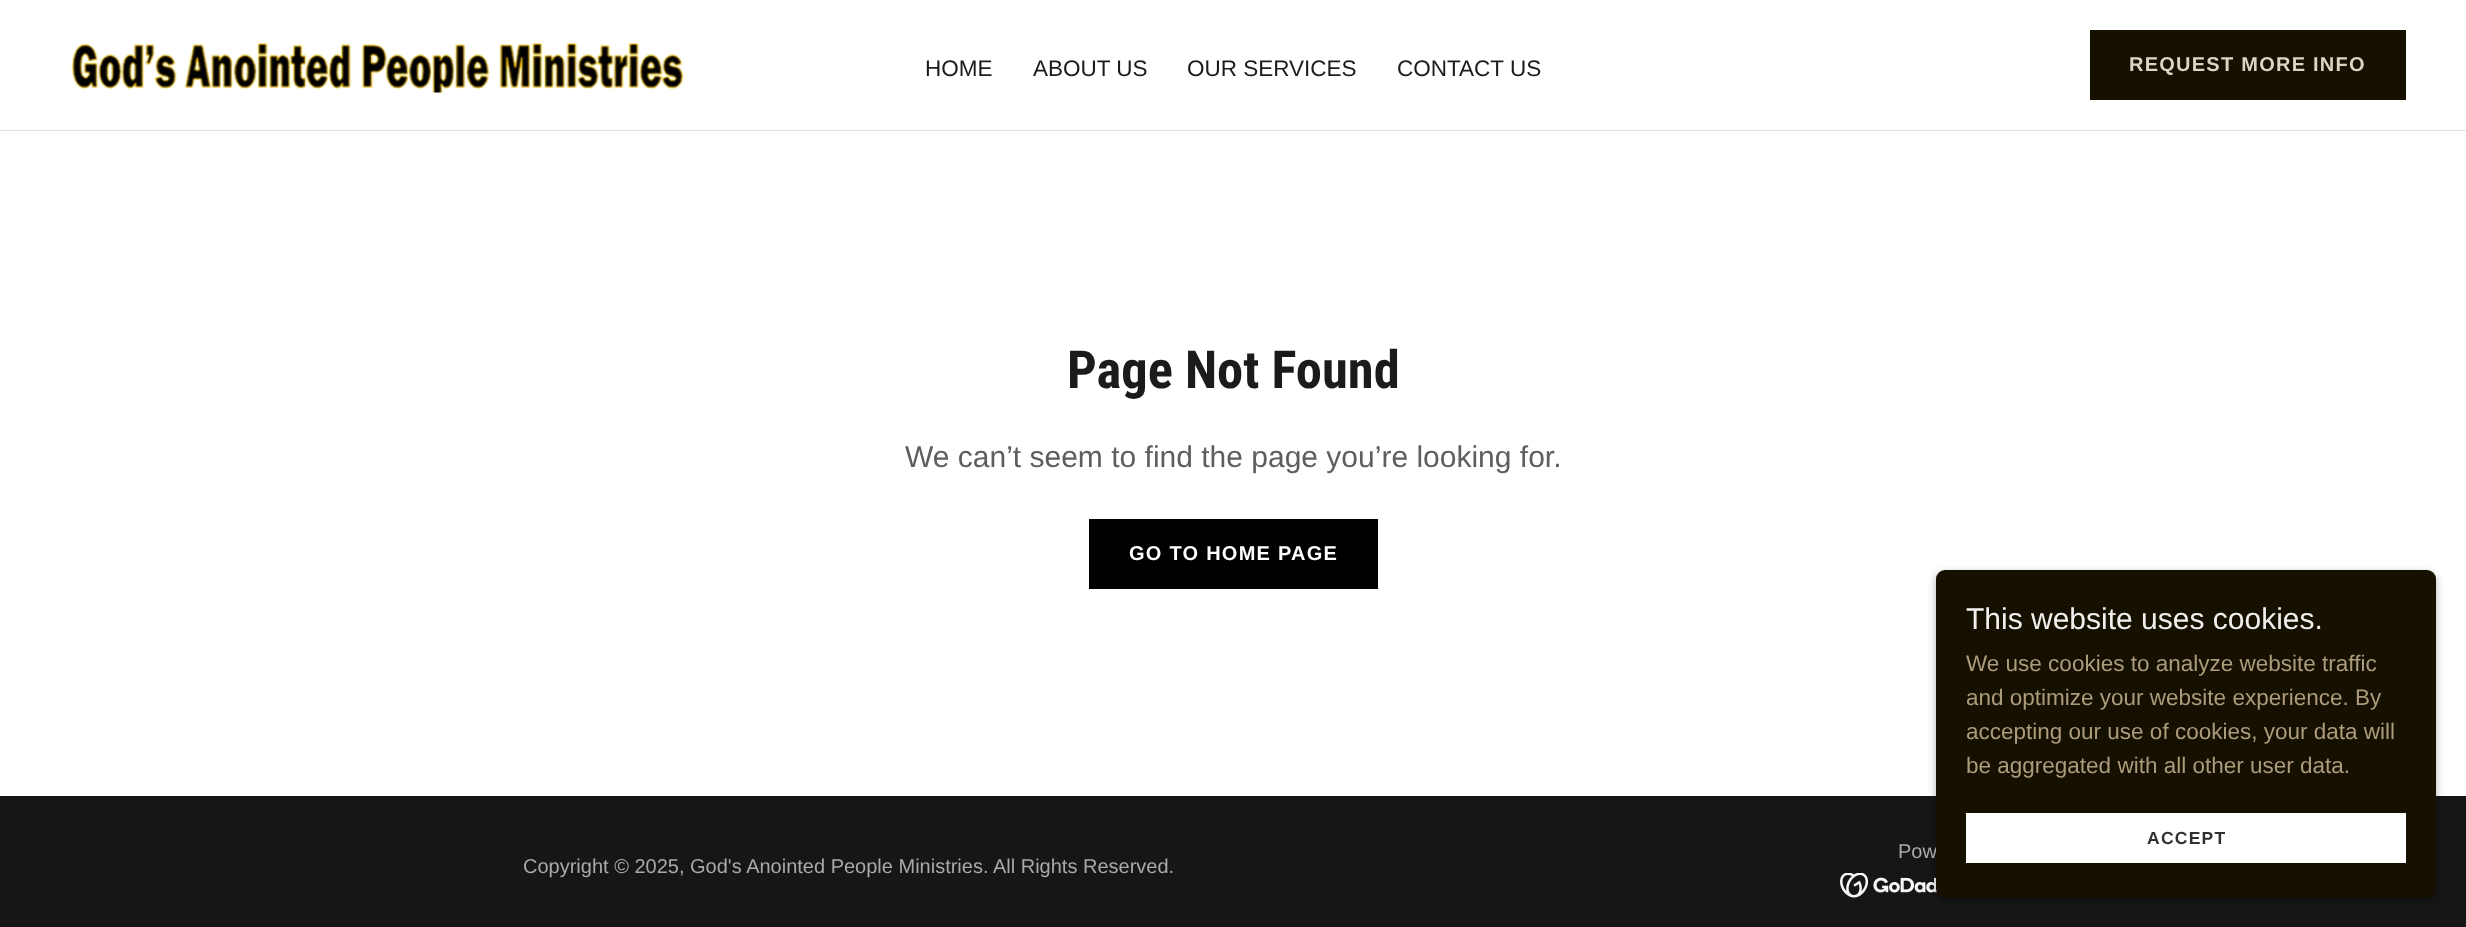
<svg xmlns="http://www.w3.org/2000/svg" width="2466" height="927" viewBox="0 0 2466 927">
  <style>
    .t1 { font: 22.5px Liberation Sans; fill: #1b1b1b; }
    .t2 { font: bold 20px Liberation Sans; letter-spacing: 1.25px; fill: #dcd3c2; }
    .t3 { font: bold 52.5px Roboto Condensed; fill: #1b1b1b; }
    .t4 { font: 30px Liberation Sans; fill: #5e5e5e; }
    .t5 { font: bold 20px Liberation Sans; letter-spacing: 1.25px; fill: #fff; }
    .t6 { font: 20px Liberation Sans; fill: #a9a9a9; }
    .t7 { font: 30px Liberation Sans; fill: #f1f0ee; }
    .t8 { font: 22.5px Liberation Sans; fill: #ab9c7c; }
    .t9 { font: bold 17.5px Liberation Sans; letter-spacing: 1.25px; fill: #303030; }
  </style>
  <rect width="100%" height="100%" fill="#161616"/>
  <rect x="0" y="0" width="2466" height="130" fill="#fff"/>
  <image x="71" y="42" width="613" height="51" href="images/1.png"/>
  <text x="925" y="76" class="t1">HOME</text>
  <text x="1033" y="76" class="t1">ABOUT US</text>
  <text x="1187" y="76" class="t1">OUR SERVICES</text>
  <text x="1397" y="76" class="t1">CONTACT US</text>
  <rect x="2090" y="30" width="316" height="70" fill="#161000"/>
  <text x="2129" y="71" class="t2">REQUEST MORE INFO</text>
  <rect x="0" y="130" width="2466" height="1" fill="#e2e2e2"/>
  <rect x="0" y="131" width="2466" height="665" fill="#fff"/>
  <text x="1067" y="388" class="t3">Page Not Found</text>
  <text x="905" y="467" class="t4">We can’t seem to find the page you’re looking for.</text>
  <rect x="1089" y="519" width="289" height="70" fill="#000"/>
  <text x="1129" y="560" class="t5">GO TO HOME PAGE</text>
  <image x="1840" y="873" width="97" height="25" href="images/2.png"/>
  <rect x="1936" y="573" width="500" height="327" rx="9" fill="#0000004d" filter="blur(4px)"/>
  <text x="1898" y="858" class="t6">Pow</text>
  <rect x="1936" y="570" width="500" height="328" rx="9" fill="#161000"/>
  <text x="1966" y="629" class="t7">This website uses cookies.</text>
  <text x="1966" y="671" class="t8">We use cookies to analyze website traffic</text>
  <text x="1966" y="705" class="t8">and optimize your website experience. By</text>
  <text x="1966" y="739" class="t8">accepting our use of cookies, your data will</text>
  <text x="1966" y="773" class="t8">be aggregated with all other user data.</text>
  <rect x="1966" y="813" width="440" height="50" fill="#fff"/>
  <text x="2147" y="844" class="t9">ACCEPT</text>
  <text x="523" y="873" class="t6">Copyright © 2025, God's Anointed People Ministries. All Rights Reserved.</text>
</svg>
